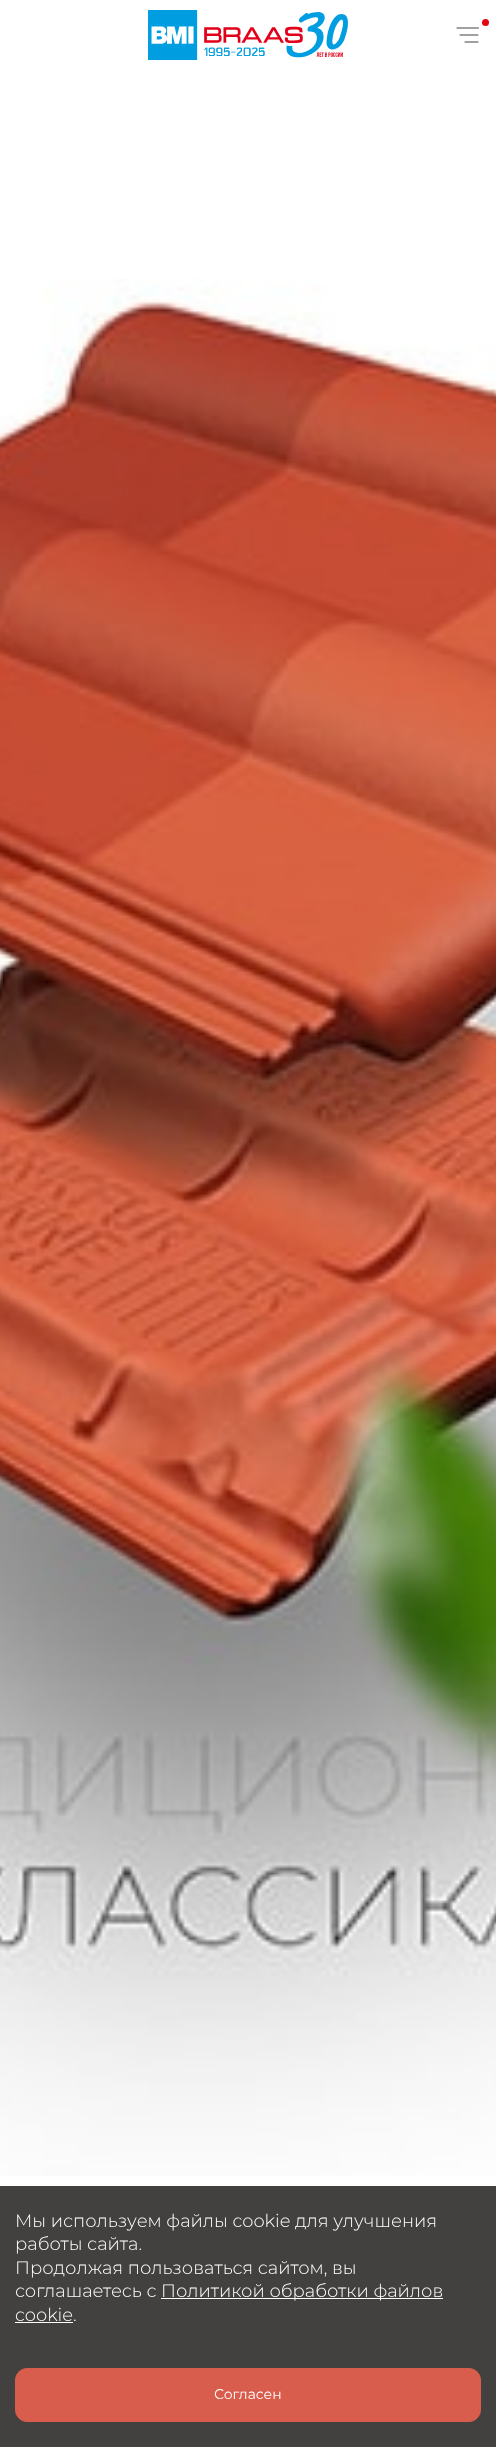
<svg xmlns="http://www.w3.org/2000/svg" width="496" height="2447" viewBox="0 0 496 2447">
  <style>
    .t1 { font: 300 18px Montserrat; fill: #fff; }
    .t2 { font: 14px Montserrat; fill: #fff; }
  </style>
  <rect width="100%" height="100%" fill="#fff"/>
  <image x="148" y="10" width="200" height="50" href="images/1.png"/>
  <circle cx="485.5" cy="22.5" r="3.5" fill="#e30613"/>
  <path d="M457 28H478.5M460 35H478M465 42H478" fill="none" stroke="#444341" stroke-linecap="round" stroke-linejoin="round"/>
  <image x="0" y="279" width="496" height="1897" href="images/2.png"/>
  <rect x="0" y="2186" width="496" height="261" fill="#43413f"/>
  <text x="15" y="2227" class="t1">Мы используем файлы cookie для улучшения</text>
  <text x="15" y="2250" class="t1">работы сайта.</text>
  <text x="15" y="2274" class="t1">Продолжая пользоваться сайтом, вы</text>
  <text x="15" y="2297" class="t1">соглашаетесь с</text>
  <rect x="161" y="2298" width="282" height="1" fill="#fff"/>
  <text x="161" y="2297" class="t1">Политикой обработки файлов</text>
  <text x="15" y="2321" class="t1">cookie.</text>
  <rect x="15" y="2322" width="58" height="1" fill="#fff"/>
  <rect x="15.5" y="2368.5" width="465" height="53" rx="11.5" fill="#d95d4c" stroke="#d95d4c"/>
  <text x="214" y="2399" class="t2">Согласен</text>
</svg>
